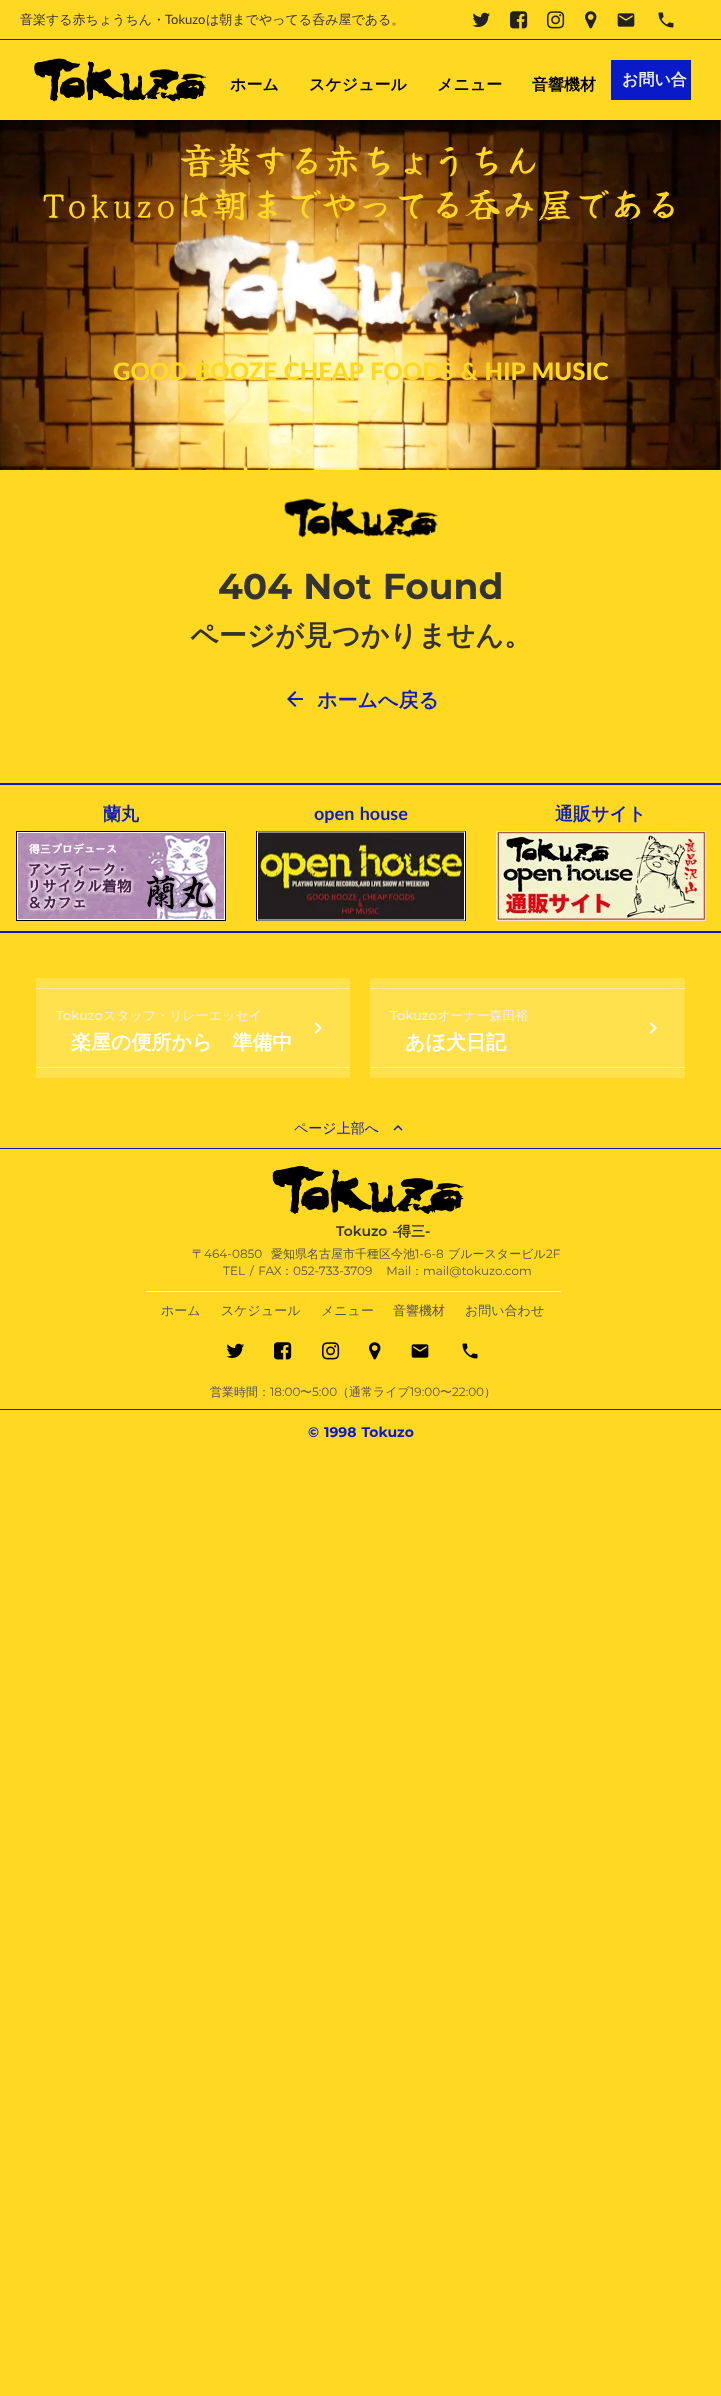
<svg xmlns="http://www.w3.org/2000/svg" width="721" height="2396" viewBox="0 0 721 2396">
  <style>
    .t1 { font: 500 13px WenQuanYi Zen Hei; fill: #333; }
    .t2 { font: 13px Lato; fill: #333; }
    .t3 { font: bold 16px WenQuanYi Zen Hei; fill: #000; }
    .t4 { font: bold 16px WenQuanYi Zen Hei; fill: #eee; }
    .t5 { font: 36px Yuji Syuku; fill: #ffd821; }
    .t6 { font: 900 24px Lato; fill: #ffd821; }
    .t7 { font: bold 36px Montserrat; fill: #333; }
    .t8 { font: bold 28px WenQuanYi Zen Hei; fill: #333; }
    .t9 { font: bold 20px WenQuanYi Zen Hei; fill: #091ac8; }
    .t10 { font: bold 18px WenQuanYi Zen Hei; fill: #091ac8; }
    .t11 { font: bold 18px Lato; fill: #091ac8; }
    .t12 { font: 500 13px Montserrat; fill: #eee; }
    .t13 { font: 500 13px WenQuanYi Zen Hei; fill: #eee; }
    .t14 { font: bold 20px WenQuanYi Zen Hei; fill: #fff; }
    .t15 { font: 500 14px WenQuanYi Zen Hei; fill: #091ac8; }
    .t16 { font: 600 14px Montserrat; fill: #333; }
    .t17 { font: bold 14px WenQuanYi Zen Hei; fill: #333; }
    .t18 { font: 500 12px WenQuanYi Zen Hei; fill: #555; }
    .t19 { font: 12px Montserrat; fill: #555; }
    .t20 { font: 500 13px WenQuanYi Zen Hei; fill: #555; }
    .t21 { font: bold 14px Montserrat; fill: #091ac8; }
  </style>
  <rect width="100%" height="100%" fill="#ffd821"/>
  <rect x="0" y="39" width="721" height="1" fill="#091ac8"/>
  <text x="20" y="24" class="t1">音楽する赤ちょうちん・</text>
  <text x="165" y="24" class="t2">Tokuzo</text>
  <text x="206" y="24" class="t1">は朝までやってる呑み屋である。</text>
  <image x="472" y="12" width="18" height="15" href="images/1.png"/>
  <image x="510" y="11" width="18" height="18" href="images/2.png"/>
  <image x="547" y="11" width="18" height="18" href="images/3.png"/>
  <image x="585" y="11" width="12" height="18" href="images/4.png"/>
  <image x="617" y="13" width="18" height="14" href="images/5.png"/>
  <image x="658" y="12" width="16" height="16" href="images/6.png"/>
  <image x="34" y="58" width="173" height="44" href="images/7.png"/>
  <text x="230" y="90" class="t3">ホーム</text>
  <text x="309" y="90" class="t3">スケジュール</text>
  <text x="437" y="90" class="t3">メニュー</text>
  <text x="532" y="90" class="t3">音響機材</text>
  <rect x="611" y="60" width="80" height="40" fill="#091ac8"/>
  <text x="622" y="85" class="t4">お問い合</text>
  <image x="0" y="120" width="721" height="350" href="images/8.png"/>
  <text x="180" y="174" class="t5">音楽する赤ちょうちん</text>
  <text x="41" y="218" class="t5">Tokuzoは朝までやってる呑み屋である</text>
  <text x="113" y="380" word-spacing="1" class="t6">GOOD BOOZE CHEAP FOODS &amp; HIP MUSIC</text>
  <image x="284" y="498" width="154" height="40" href="images/9.png"/>
  <text x="218" y="599" word-spacing="1" class="t7">404 Not Found</text>
  <text x="190" y="645" class="t8">ページが見つかりません。</text>
  <image x="287" y="691" width="16" height="16" href="images/10.png"/>
  <text x="317" y="707" class="t9">ホームへ戻る</text>
  <rect x="0" y="783" width="721" height="2" fill="#091ac8"/>
  <rect x="0" y="931" width="721" height="2" fill="#091ac8"/>
  <text x="103" y="820" class="t10">蘭丸</text>
  <image x="16" y="831" width="210" height="90" href="images/11.png"/>
  <text x="314" y="820" word-spacing="1" class="t11">open house</text>
  <image x="256" y="831" width="210" height="90" href="images/12.png"/>
  <text x="555" y="820" class="t10">通販サイト</text>
  <image x="496" y="831" width="210" height="90" href="images/13.png"/>
  <rect x="36" y="978" width="314" height="100" fill="#ffe04d"/>
  <rect x="36" y="988" width="314" height="1" fill="#fff0a6"/>
  <text x="56" y="1020" class="t12">Tokuzo</text>
  <text x="103" y="1020" class="t13">スタッフ・リレーエッセイ</text>
  <text x="71" y="1049" class="t14">楽屋の便所から　準備中</text>
  <image x="314" y="1022" width="8" height="12" href="images/14.png"/>
  <rect x="36" y="1067" width="314" height="1" fill="#fff0a6"/>
  <rect x="370" y="978" width="315" height="100" fill="#ffe04d"/>
  <rect x="370" y="988" width="315" height="1" fill="#fff0a6"/>
  <text x="390" y="1020" class="t12">Tokuzo</text>
  <text x="437" y="1020" class="t13">オーナー森田裕</text>
  <text x="405" y="1049" class="t14">あほ犬日記</text>
  <image x="649" y="1022" width="8" height="12" href="images/14.png"/>
  <rect x="370" y="1067" width="315" height="1" fill="#fff0a6"/>
  <text x="294" y="1133" class="t15">ページ上部へ</text>
  <image x="393" y="1125" width="10" height="6" href="images/15.png"/>
  <rect x="0" y="1148" width="721" height="1" fill="#091ac8"/>
  <image x="272" y="1165" width="192" height="49" href="images/16.png"/>
  <text x="336" y="1236" word-spacing="1" class="t16">Tokuzo -</text>
  <text x="397" y="1236" class="t17">得三</text>
  <text x="425" y="1236" class="t16">-</text>
  <text x="192" y="1258" class="t18">〒</text>
  <text x="204" y="1258" class="t19">464-0850</text>
  <text x="271" y="1258" class="t18">愛知県名古屋市千種区今池</text>
  <text x="415" y="1258" class="t19">1-6-8</text>
  <text x="448" y="1258" class="t18">ブルースタービル</text>
  <text x="546" y="1258" class="t19">2F</text>
  <text x="223" y="1275" word-spacing="1.5" class="t19">TEL / FAX</text>
  <text x="281" y="1275" class="t18">：</text>
  <text x="293" y="1275" word-spacing="1.5" class="t19" xml:space="preserve">052-733-3709   Mail</text>
  <text x="411" y="1275" class="t18">：</text>
  <text x="423" y="1275" class="t19">mail@tokuzo.com</text>
  <rect x="146" y="1291" width="415" height="1" fill="#eee"/>
  <text x="161" y="1315" class="t20">ホーム</text>
  <text x="221" y="1315" class="t20">スケジュール</text>
  <text x="321" y="1315" class="t20">メニュー</text>
  <text x="393" y="1315" class="t20">音響機材</text>
  <text x="465" y="1315" class="t20">お問い合わせ</text>
  <image x="226" y="1343" width="18" height="15" href="images/17.png"/>
  <image x="274" y="1342" width="18" height="18" href="images/18.png"/>
  <image x="322" y="1342" width="18" height="18" href="images/19.png"/>
  <image x="369" y="1342" width="12" height="18" href="images/20.png"/>
  <image x="411" y="1344" width="18" height="14" href="images/21.png"/>
  <image x="462" y="1343" width="16" height="16" href="images/22.png"/>
  <text x="210" y="1396" class="t18">営業時間：</text>
  <text x="270" y="1396" class="t19">18:00</text>
  <text x="300" y="1396" class="t18">〜</text>
  <text x="312" y="1396" class="t19">5:00</text>
  <text x="337" y="1396" class="t18">（通常ライブ</text>
  <text x="410" y="1396" class="t19">19:00</text>
  <text x="440" y="1396" class="t18">〜</text>
  <text x="452" y="1396" class="t19">22:00</text>
  <text x="484" y="1396" class="t18">）</text>
  <rect x="0" y="1409" width="721" height="1" fill="#091ac8"/>
  <text x="308" y="1437" word-spacing="1" class="t21">©︎ 1998 Tokuzo</text>
</svg>
